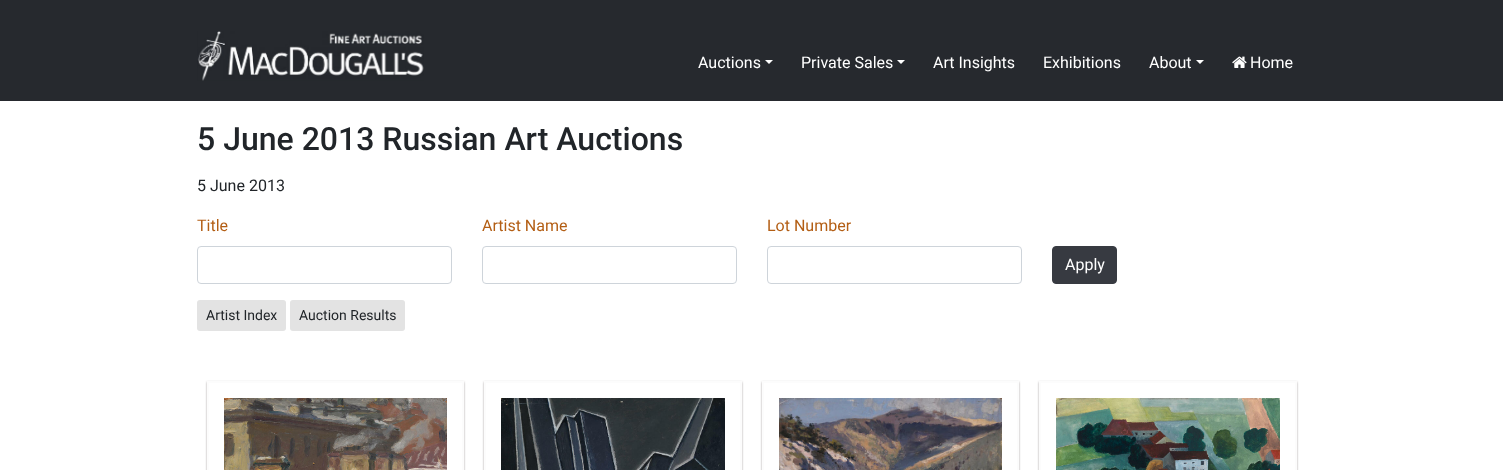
<svg xmlns="http://www.w3.org/2000/svg" width="1503" height="470" viewBox="0 0 1503 470">
  <style>
    .t1 { font: 16px Roboto; fill: #fff; }
    .t2 { font: 500 32px Roboto; fill: #212529; }
    .t3 { font: 16px Roboto; fill: #212529; }
    .t4 { font: 16px Roboto; fill: #b35e14; }
    .t5 { font: 14px Roboto; fill: #212529; }
  </style>
  <defs>
    <clipPath id="clip1"><path d="M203 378H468V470H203ZM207 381H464V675H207Z" clip-rule="evenodd"/></clipPath>
    <clipPath id="clip2"><path d="M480 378H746V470H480ZM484 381H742V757H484Z" clip-rule="evenodd"/></clipPath>
    <clipPath id="clip3"><path d="M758 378H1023V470H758ZM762 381H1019V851H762Z" clip-rule="evenodd"/></clipPath>
    <clipPath id="clip4"><path d="M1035 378H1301V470H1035ZM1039 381H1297V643H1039Z" clip-rule="evenodd"/></clipPath>
  </defs>
  <rect width="100%" height="100%" fill="#fff"/>
  <rect x="0" y="0" width="1503" height="101" fill="#26292e"/>
  <image x="197" y="31" width="227" height="50" href="images/1.png"/>
  <text x="698" y="68" class="t1">Auctions</text>
  <path d="M765 60H773L769 64Z" fill="#fff"/>
  <text x="801" y="68" class="t1">Private Sales</text>
  <path d="M897 60H905L901 64Z" fill="#fff"/>
  <text x="933" y="68" class="t1">Art Insights</text>
  <text x="1043" y="68" class="t1">Exhibitions</text>
  <text x="1149" y="68" class="t1">About</text>
  <path d="M1196 60H1204L1200 64Z" fill="#fff"/>
  <image x="1232" y="56" width="15" height="12" href="images/2.png"/>
  <text x="1250" y="68" class="t1">Home</text>
  <text x="197" y="150" class="t2">5 June 2013 Russian Art Auctions</text>
  <text x="197" y="191" class="t3">5 June 2013</text>
  <text x="197" y="231" class="t4">Title</text>
  <rect x="197.5" y="246.5" width="254" height="37" rx="3.5" fill="none" stroke="#ced4da"/>
  <text x="482" y="231" class="t4">Artist Name</text>
  <rect x="482.5" y="246.5" width="254" height="37" rx="3.5" fill="none" stroke="#ced4da"/>
  <text x="767" y="231" class="t4">Lot Number</text>
  <rect x="767.5" y="246.5" width="254" height="37" rx="3.5" fill="none" stroke="#ced4da"/>
  <rect x="1052.5" y="246.5" width="64" height="37" rx="3.5" fill="#373a41" stroke="#373a41"/>
  <text x="1065" y="270" class="t1">Apply</text>
  <rect x="197" y="300" width="89" height="31" rx="3" fill="#e3e3e3"/>
  <text x="206" y="320" class="t5">Artist Index</text>
  <rect x="290" y="300" width="115" height="31" rx="3" fill="#e3e3e3"/>
  <text x="299" y="320" class="t5">Auction Results</text>
  <g clip-path="url(#clip1)">
    <rect x="207" y="382" width="257" height="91" fill="#22191966" filter="blur(1px)"/>
  </g>
  <rect x="208" y="382" width="255" height="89" fill="none" stroke="#fcfcfc" stroke-width="2"/>
  <image x="224" y="398" width="223" height="72" href="images/3.png"/>
  <g clip-path="url(#clip2)">
    <rect x="484" y="382" width="258" height="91" fill="#22191966" filter="blur(1px)"/>
  </g>
  <rect x="485" y="382" width="256" height="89" fill="none" stroke="#fcfcfc" stroke-width="2"/>
  <image x="501" y="398" width="224" height="72" href="images/4.png"/>
  <g clip-path="url(#clip3)">
    <rect x="762" y="382" width="257" height="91" fill="#22191966" filter="blur(1px)"/>
  </g>
  <rect x="763" y="382" width="255" height="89" fill="none" stroke="#fcfcfc" stroke-width="2"/>
  <image x="779" y="398" width="223" height="72" href="images/5.png"/>
  <g clip-path="url(#clip4)">
    <rect x="1039" y="382" width="258" height="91" fill="#22191966" filter="blur(1px)"/>
  </g>
  <rect x="1040" y="382" width="256" height="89" fill="none" stroke="#fcfcfc" stroke-width="2"/>
  <image x="1056" y="398" width="224" height="72" href="images/6.png"/>
</svg>
